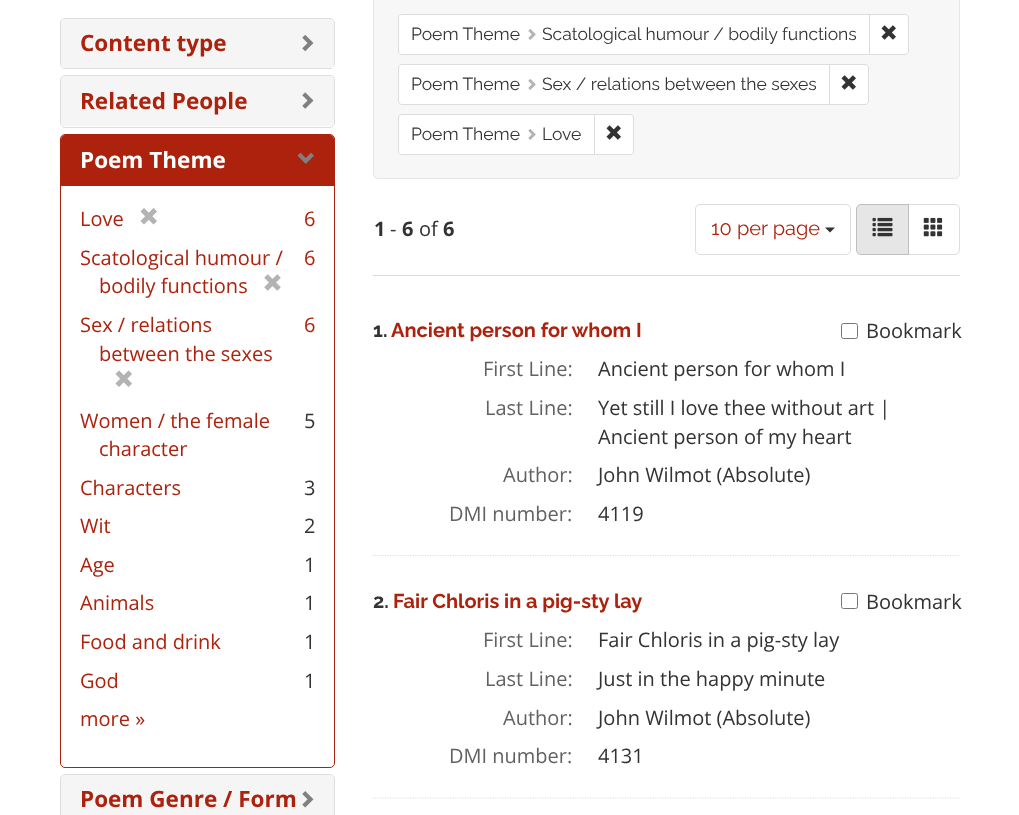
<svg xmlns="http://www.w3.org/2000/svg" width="1019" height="815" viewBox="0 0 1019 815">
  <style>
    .t1 { font: bold 22.5px Open Sans; fill: #ad220d; }
    .t2 { font: bold 22.5px Open Sans; fill: #fff; }
    .t3 { font: 20px Open Sans; fill: #ad220d; }
    .t4 { font: 20px Open Sans; fill: #333; }
    .t5 { font: 17.5px Raleway; fill: #333; }
    .t6 { font: bold 20px Open Sans; fill: #333; }
    .t7 { font: 20px Raleway; fill: #ad220d; }
    .t8 { font: bold 20px Raleway; fill: #333; }
    .t9 { font: bold 20px Raleway; fill: #ad220d; }
    .t10 { font: 20px Open Sans; fill: #626262; }
  </style>
  <rect width="100%" height="100%" fill="#fff"/>
  <rect x="60.5" y="18.5" width="274" height="50" rx="4.5" fill="none" stroke="#ddd"/>
  <path d="M65 19H330C332 19 334 21 334 23V68H61V23C61 21 63 19 65 19Z" fill="#f5f5f5"/>
  <text x="80" y="51" class="t1">Content type</text>
  <image x="302" y="34" width="12" height="18" href="images/1.png"/>
  <rect x="60.5" y="75.5" width="274" height="52" rx="4.5" fill="none" stroke="#ddd"/>
  <path d="M65 76H330C332 76 334 78 334 80V126H61V80C61 78 63 76 65 76Z" fill="#f5f5f5"/>
  <text x="80" y="109" class="t1">Related People</text>
  <image x="302" y="92" width="12" height="17" href="images/2.png"/>
  <rect x="60.5" y="134.5" width="274" height="633" rx="4.5" fill="none" stroke="#ad220d"/>
  <path d="M65 135H330C332 135 334 137 334 139V185H61V139C61 137 63 135 65 135Z" fill="#ad220d"/>
  <text x="80" y="168" class="t2">Poem Theme</text>
  <image x="297" y="152" width="17" height="12" href="images/3.png"/>
  <rect x="61" y="185" width="273" height="1" fill="#ad220d"/>
  <text x="80" y="226" class="t3">Love</text>
  <image x="140" y="208" width="17" height="17" href="images/4.png"/>
  <text x="304" y="226" class="t3">6</text>
  <text x="80" y="265" class="t3">Scatological humour /</text>
  <text x="99" y="293" class="t3">bodily functions</text>
  <image x="264" y="274" width="17" height="17" href="images/5.png"/>
  <text x="304" y="265" class="t3">6</text>
  <text x="80" y="332" class="t3">Sex / relations</text>
  <text x="99" y="361" class="t3">between the sexes</text>
  <image x="115" y="370" width="17" height="17" href="images/6.png"/>
  <text x="304" y="332" class="t3">6</text>
  <text x="80" y="428" class="t3">Women / the female</text>
  <text x="99" y="456" class="t3">character</text>
  <text x="304" y="428" class="t4">5</text>
  <text x="80" y="495" class="t3">Characters</text>
  <text x="304" y="495" class="t4">3</text>
  <text x="80" y="533" class="t3">Wit</text>
  <text x="304" y="533" class="t4">2</text>
  <text x="80" y="572" class="t3">Age</text>
  <text x="304" y="572" class="t4">1</text>
  <text x="80" y="610" class="t3">Animals</text>
  <text x="304" y="610" class="t4">1</text>
  <text x="80" y="649" class="t3">Food and drink</text>
  <text x="304" y="649" class="t4">1</text>
  <text x="80" y="688" class="t3">God</text>
  <text x="304" y="688" class="t4">1</text>
  <text x="80" y="726" class="t3">more »</text>
  <rect x="60.5" y="774.5" width="274" height="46" rx="4.5" fill="none" stroke="#ddd"/>
  <path d="M65 775H330C332 775 334 777 334 779V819H61V779C61 777 63 775 65 775Z" fill="#f5f5f5"/>
  <text x="80" y="807" class="t1">Poem Genre / Form</text>
  <image x="302" y="791" width="12" height="17" href="images/7.png"/>
  <rect x="373.5" y="-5.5" width="586" height="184" rx="4.5" fill="#f7f7f7" stroke="#e6e6e6"/>
  <path d="M402 14.5H869.5V54.5H402C400 54.5 398.5 53 398.5 51V18C398.5 16 400 14.5 402 14.5Z" fill="#fff" stroke="#ddd"/>
  <text x="411" y="40" class="t5">Poem Theme</text>
  <image x="528" y="29" width="8" height="11" href="images/8.png"/>
  <text x="542" y="40" class="t5">Scatological humour / bodily functions</text>
  <path d="M869.5 14.5H905C907 14.5 908.5 16 908.5 18V51C908.5 53 907 54.5 905 54.5H869.5Z" fill="#fff" stroke="#ddd"/>
  <image x="881" y="25" width="15" height="15" href="images/9.png"/>
  <path d="M402 64.5H829.5V104.5H402C400 104.5 398.5 103 398.5 101V68C398.5 66 400 64.5 402 64.5Z" fill="#fff" stroke="#ddd"/>
  <text x="411" y="90" class="t5">Poem Theme</text>
  <image x="528" y="79" width="8" height="11" href="images/8.png"/>
  <text x="542" y="90" class="t5">Sex / relations between the sexes</text>
  <path d="M829.5 64.5H865C867 64.5 868.5 66 868.5 68V101C868.5 103 867 104.5 865 104.5H829.5Z" fill="#fff" stroke="#ddd"/>
  <image x="841" y="75" width="15" height="15" href="images/9.png"/>
  <path d="M402 114.5H594.5V154.5H402C400 154.5 398.5 153 398.5 151V118C398.5 116 400 114.5 402 114.5Z" fill="#fff" stroke="#ddd"/>
  <text x="411" y="140" class="t5">Poem Theme</text>
  <image x="528" y="129" width="8" height="11" href="images/8.png"/>
  <text x="542" y="140" class="t5">Love</text>
  <path d="M594.5 114.5H630C632 114.5 633.5 116 633.5 118V151C633.5 153 632 154.5 630 154.5H594.5Z" fill="#fff" stroke="#ddd"/>
  <image x="606" y="125" width="15" height="15" href="images/9.png"/>
  <rect x="373" y="275" width="587" height="1" fill="#ddd"/>
  <text x="374" y="236" class="t6">1</text>
  <text x="390" y="236" class="t4">-</text>
  <text x="402" y="236" class="t6">6</text>
  <text x="419" y="236" class="t4">of</text>
  <text x="443" y="236" class="t6">6</text>
  <rect x="695.5" y="204.5" width="155" height="50" rx="4.5" fill="none" stroke="#ddd"/>
  <text x="711" y="235" class="t7">10 per page</text>
  <path d="M825 227.5H835L830 232.5Z" fill="#333"/>
  <path d="M908.5 204.5H955C957.5 204.5 959.5 206.5 959.5 209V250C959.5 252.5 957.5 254.5 955 254.5H908.5Z" fill="none" stroke="#ddd"/>
  <path d="M861 204.5H908.5V254.5H861C858.5 254.5 856.5 252.5 856.5 250V209C856.5 206.5 858.5 204.5 861 204.5Z" fill="#e6e6e6" stroke="#bebebe"/>
  <image x="872" y="217" width="21" height="20" href="images/10.png"/>
  <image x="923" y="217" width="20" height="20" href="images/11.png"/>
  <path d="M372.5 555.5H960" fill="none" stroke="#ddd" stroke-width="1.2" stroke-dasharray="1.25 1.25"/>
  <text x="373" y="337" class="t8">1.</text>
  <text x="391" y="337" class="t9">Ancient person for whom I</text>
  <rect x="841.5" y="323.5" width="16" height="15" rx="2" fill="none" stroke="#767676"/>
  <text x="866" y="338" class="t4">Bookmark</text>
  <text x="483" y="376" class="t10">First Line:</text>
  <text x="598" y="376" class="t4">Ancient person for whom I</text>
  <text x="485" y="415" class="t10">Last Line:</text>
  <text x="598" y="415" class="t4">Yet still I love thee without art |</text>
  <text x="598" y="444" class="t4">Ancient person of my heart</text>
  <text x="503" y="482" class="t10">Author:</text>
  <text x="598" y="482" class="t4">John Wilmot (Absolute)</text>
  <text x="449" y="521" class="t10">DMI number:</text>
  <text x="598" y="521" class="t4">4119</text>
  <path d="M372.5 798H960" fill="none" stroke="#ddd" stroke-width="1.2" stroke-dasharray="1.25 1.25"/>
  <text x="373" y="608" class="t8">2.</text>
  <text x="393" y="608" class="t9">Fair Chloris in a pig-sty lay</text>
  <rect x="841.5" y="593.5" width="16" height="15" rx="2" fill="none" stroke="#767676"/>
  <text x="866" y="609" class="t4">Bookmark</text>
  <text x="483" y="647" class="t10">First Line:</text>
  <text x="598" y="647" class="t4">Fair Chloris in a pig-sty lay</text>
  <text x="485" y="686" class="t10">Last Line:</text>
  <text x="598" y="686" class="t4">Just in the happy minute</text>
  <text x="503" y="725" class="t10">Author:</text>
  <text x="598" y="725" class="t4">John Wilmot (Absolute)</text>
  <text x="449" y="763" class="t10">DMI number:</text>
  <text x="598" y="763" class="t4">4131</text>
</svg>
